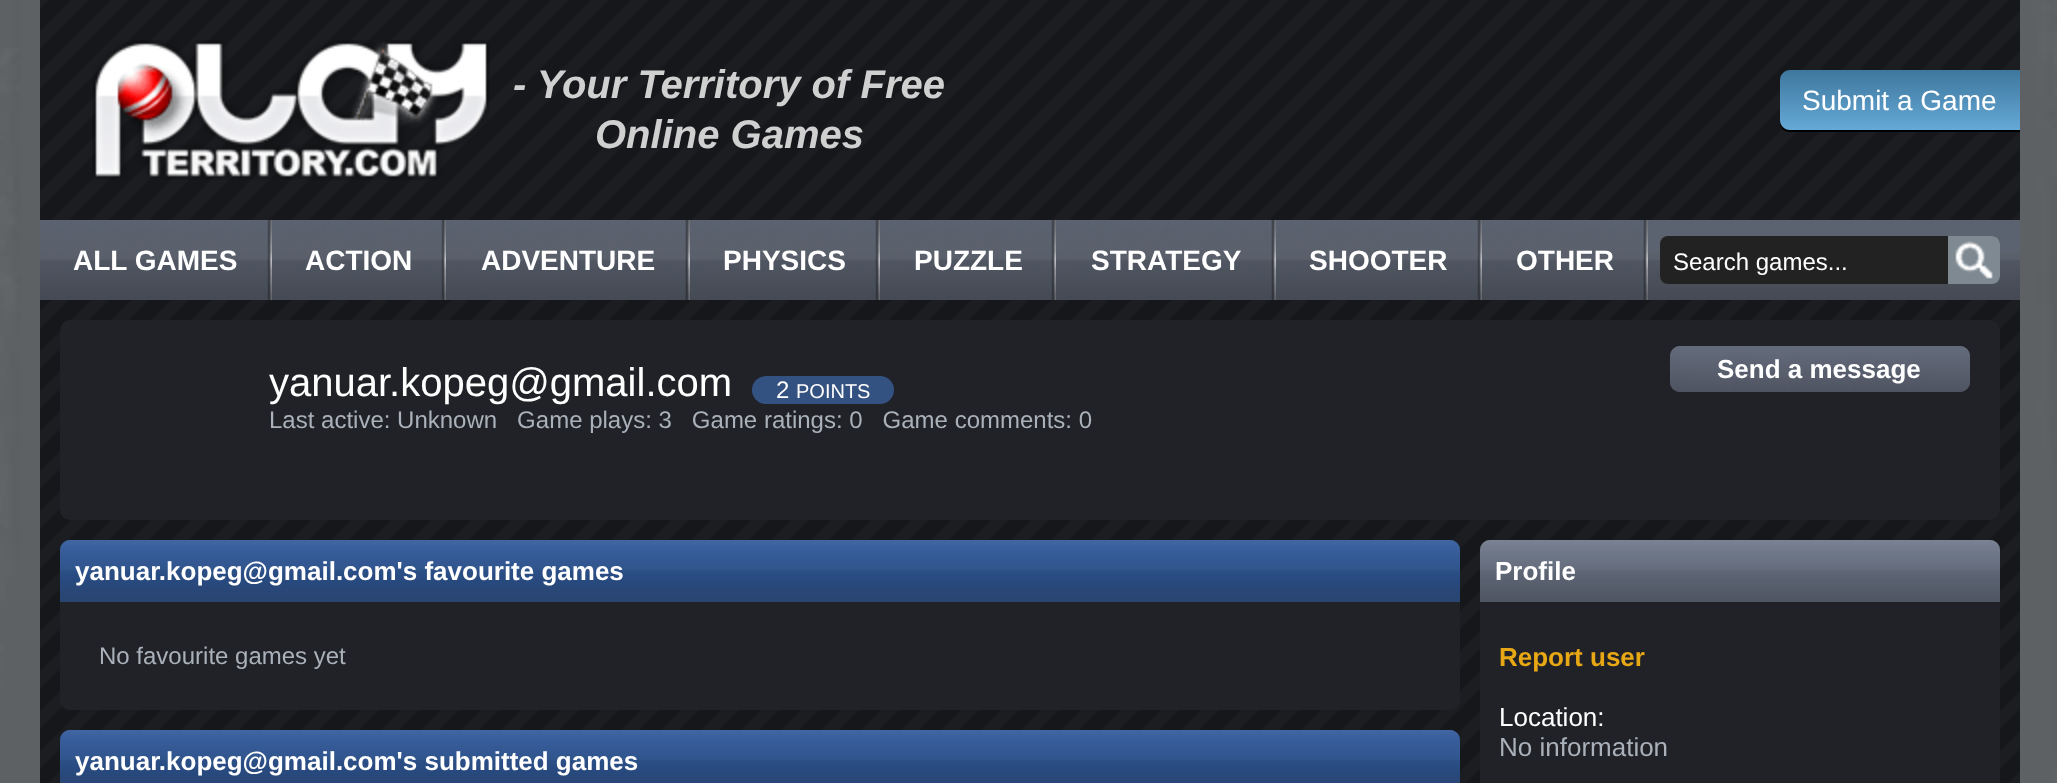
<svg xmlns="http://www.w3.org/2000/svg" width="2057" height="783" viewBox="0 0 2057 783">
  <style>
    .t1 { font: italic bold 40px Liberation Sans; fill: #d0d0d0; }
    .t2 { font: 28px Liberation Sans; fill: #fff; }
    .t3 { font: bold 28px Liberation Sans; fill: #fff; }
    .t4 { font: 24px Liberation Sans; fill: #fff; }
    .t5 { font: 40px Liberation Sans; fill: #fff; }
    .t6 { font: 20px Liberation Sans; fill: #fff; }
    .t7 { font: 24px Liberation Sans; fill: #aab1ba; }
    .t8 { font: bold 26px Liberation Sans; fill: #fff; }
    .t9 { font: bold 26px Liberation Sans; fill: #e8a815; }
    .t10 { font: 26px Liberation Sans; fill: #fff; }
    .t11 { font: 26px Liberation Sans; fill: #aab1ba; }
  </style>
  <defs>
    <linearGradient id="g1" gradientUnits="userSpaceOnUse" x1="1900" y1="70" x2="1900" y2="130"><stop offset="0" stop-color="#3e779d"/><stop offset="1" stop-color="#65a9d7"/></linearGradient>
  </defs>
  <rect width="100%" height="100%" fill="#fff"/>
  <image x="0" y="0" width="2057" height="783" href="images/1.png"/>
  <image x="40" y="0" width="1980" height="783" href="images/2.png"/>
  <image x="92" y="40" width="398" height="140" href="images/3.png"/>
  <text x="513" y="98" class="t1">- Your Territory of Free</text>
  <text x="595" y="148" class="t1">Online Games</text>
  <path d="M1780 120V122C1780 128 1784 132 1790 132H2020V130H1790C1784 130 1780 126 1780 120Z" fill="#000"/>
  <path d="M1790 70H2020V130H1790C1784.5 130 1780 125.5 1780 120V80C1780 74.5 1784.5 70 1790 70Z" fill="url(#g1)"/>
  <text x="1802" y="110" class="t2">Submit a Game</text>
  <rect x="1648" y="220" width="372" height="33" fill="#5c6370"/>
  <image x="1648" y="253" width="372" height="47" href="images/4.png"/>
  <image x="40" y="220" width="232" height="80" href="images/5.png"/>
  <text x="73" y="270" class="t3">ALL GAMES</text>
  <image x="272" y="220" width="174" height="80" href="images/6.png"/>
  <text x="305" y="270" class="t3">ACTION</text>
  <image x="446" y="220" width="244" height="80" href="images/7.png"/>
  <text x="481" y="270" class="t3">ADVENTURE</text>
  <image x="690" y="220" width="190" height="80" href="images/8.png"/>
  <text x="723" y="270" class="t3">PHYSICS</text>
  <image x="880" y="220" width="176" height="80" href="images/9.png"/>
  <text x="914" y="270" class="t3">PUZZLE</text>
  <image x="1056" y="220" width="220" height="80" href="images/10.png"/>
  <text x="1091" y="270" class="t3">STRATEGY</text>
  <image x="1276" y="220" width="206" height="80" href="images/11.png"/>
  <text x="1309" y="270" class="t3">SHOOTER</text>
  <image x="1482" y="220" width="166" height="80" href="images/12.png"/>
  <text x="1516" y="270" class="t3">OTHER</text>
  <rect x="1660" y="236" width="340" height="48" rx="8" fill="#222"/>
  <text x="1673" y="270" class="t4">Search games...</text>
  <path d="M1948 236H1992C1996.5 236 2000 239.5 2000 244V276C2000 280.5 1996.5 284 1992 284H1948Z" fill="#7e8992"/>
  <image x="1955" y="241" width="38" height="38" href="images/13.png"/>
  <rect x="60" y="320" width="1940" height="200" rx="10" fill="#202227"/>
  <text x="269" y="396" class="t5">yanuar.kopeg@gmail.com</text>
  <rect x="752" y="376" width="142" height="28" rx="14" fill="#335181"/>
  <text x="776" y="398" class="t4">2</text>
  <text x="796" y="398" class="t6">POINTS</text>
  <text x="269" y="428" class="t7" xml:space="preserve">Last active: Unknown   Game plays: 3   Game ratings: 0   Game comments: 0</text>
  <rect x="1670" y="346" width="300" height="46" rx="10" fill="#575c6b"/>
  <image x="1670" y="346" width="300" height="46" href="images/14.png"/>
  <text x="1717" y="378" class="t8">Send a message</text>
  <path d="M70 540H1450C1455.5 540 1460 544.5 1460 550V602H60V550C60 544.5 64.5 540 70 540Z" fill="#335181"/>
  <image x="60" y="540" width="1400" height="62" href="images/15.png"/>
  <text x="75" y="580" class="t8">yanuar.kopeg@gmail.com's favourite games</text>
  <path d="M60 602H1460V700C1460 705.5 1455.5 710 1450 710H70C64.5 710 60 705.5 60 700Z" fill="#202227"/>
  <text x="99" y="664" class="t7">No favourite games yet</text>
  <path d="M70 730H1450C1455.5 730 1460 734.5 1460 740V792H60V740C60 734.5 64.5 730 70 730Z" fill="#335181"/>
  <image x="60" y="730" width="1400" height="53" href="images/16.png"/>
  <text x="75" y="770" class="t8">yanuar.kopeg@gmail.com's submitted games</text>
  <rect x="1480" y="540" width="520" height="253" rx="10" fill="#202227"/>
  <path d="M1490 540H1990C1995.5 540 2000 544.5 2000 550V602H1480V550C1480 544.5 1484.5 540 1490 540Z" fill="#5c6370"/>
  <image x="1480" y="540" width="520" height="62" href="images/17.png"/>
  <text x="1495" y="580" class="t8">Profile</text>
  <text x="1499" y="666" class="t9">Report user</text>
  <text x="1499" y="726" class="t10">Location:</text>
  <text x="1499" y="756" class="t11">No information</text>
</svg>
